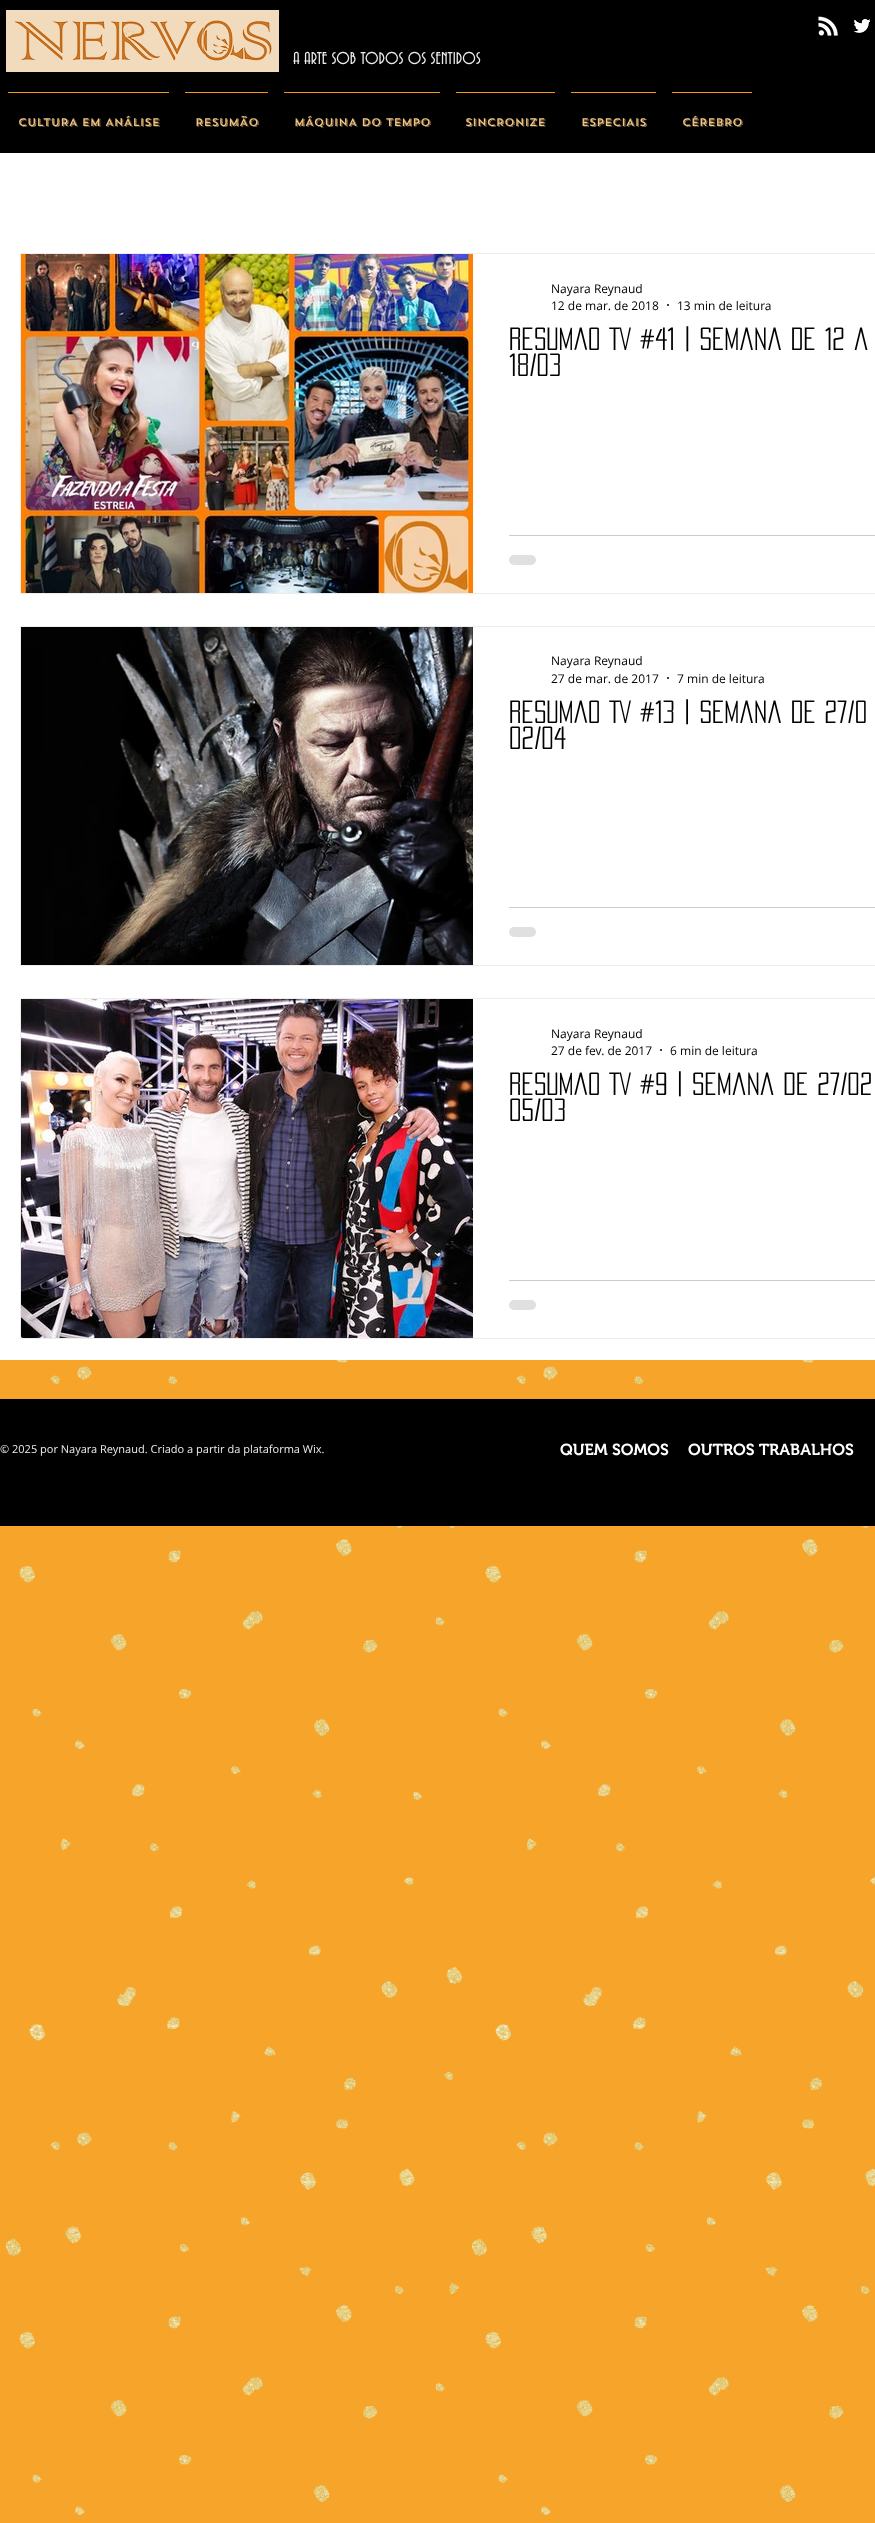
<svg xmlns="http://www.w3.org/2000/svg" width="875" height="2523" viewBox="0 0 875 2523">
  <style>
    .t1 { font: 18px 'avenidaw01'; fill: #ededec; }
    .t2 { font: 500 11px 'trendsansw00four'; fill: #f2c683; }
    .t3 { font: 12px Open Sans; fill: #000; }
    .t4 { font: 28px 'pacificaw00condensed'; fill: #000; }
    .t5 { font: 11px Open Sans; fill: #ededec; }
    .t6 { font: 600 16px 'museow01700'; fill: #fff; }
  </style>
  <defs>
    <clipPath id="clip1"><rect x="509" y="326" width="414" height="52"/></clipPath>
    <clipPath id="clip2"><rect x="509" y="699" width="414" height="52"/></clipPath>
    <clipPath id="clip3"><rect x="509" y="1071" width="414" height="52"/></clipPath>
  </defs>
  <rect width="100%" height="100%" fill="#f7a52a"/>
  <rect x="0" y="0" width="875" height="153" fill="#000"/>
  <image x="6" y="10" width="273" height="62" href="images/1.png"/>
  <image x="818" y="16" width="20" height="20" href="images/2.png"/>
  <image x="854" y="19" width="17" height="14" href="images/3.png"/>
  <text x="293" y="64" class="t1">A ARTE SOB TODOS OS SENTIDOS</text>
  <rect x="8" y="92" width="161" height="1" fill="#f29811"/>
  <text x="18" y="126" class="t2">CULTURA EM ANÁLISE</text>
  <rect x="185" y="92" width="83" height="1" fill="#f29811"/>
  <text x="195" y="126" class="t2">RESUMÃO</text>
  <rect x="284" y="92" width="156" height="1" fill="#f29811"/>
  <text x="294" y="126" class="t2">MÁQUINA DO TEMPO</text>
  <rect x="456" y="92" width="99" height="1" fill="#f29811"/>
  <text x="465" y="126" class="t2">SINCRONIZE</text>
  <rect x="571" y="92" width="85" height="1" fill="#f29811"/>
  <text x="581" y="126" class="t2">ESPECIAIS</text>
  <rect x="672" y="92" width="80" height="1" fill="#f29811"/>
  <text x="682" y="126" class="t2">CÉREBRO</text>
  <rect x="0" y="153" width="875" height="1207" fill="#fff"/>
  <rect x="20.5" y="253.5" width="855" height="340" fill="none" stroke="#ededec"/>
  <image x="21" y="254" width="452" height="339" href="images/4.png"/>
  <text x="551" y="293" class="t3">Nayara Reynaud</text>
  <text x="551" y="310" class="t3">12 de mar. de 2018</text>
  <circle cx="668" cy="305" r="1" fill="#000"/>
  <text x="677" y="310" class="t3">13 min de leitura</text>
  <g clip-path="url(#clip1)">
    <text x="509" y="350" class="t4">Resumão TV #41 | Semana de 12 a</text>
  </g>
  <text x="509" y="376" class="t4">18/03</text>
  <rect x="509" y="535" width="366" height="1" fill="#ccc"/>
  <rect x="509" y="555" width="27" height="10" rx="5" fill="#e0e0e0"/>
  <rect x="20.5" y="626.5" width="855" height="339" fill="none" stroke="#ededec"/>
  <image x="21" y="627" width="32" height="338" href="images/5.png"/>
  <image x="53" y="627" width="420" height="338" href="images/6.png"/>
  <text x="551" y="665" class="t3">Nayara Reynaud</text>
  <text x="551" y="683" class="t3">27 de mar. de 2017</text>
  <circle cx="668" cy="678" r="1" fill="#000"/>
  <text x="677" y="683" class="t3">7 min de leitura</text>
  <g clip-path="url(#clip2)">
    <text x="509" y="723" class="t4">Resumão TV #13 | Semana de 27/0</text>
  </g>
  <text x="509" y="749" class="t4">02/04</text>
  <rect x="509" y="907" width="366" height="1" fill="#ccc"/>
  <rect x="509" y="927" width="27" height="10" rx="5" fill="#e0e0e0"/>
  <rect x="20.5" y="998.5" width="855" height="340" fill="none" stroke="#ededec"/>
  <image x="21" y="999" width="452" height="339" href="images/7.png"/>
  <text x="551" y="1038" class="t3">Nayara Reynaud</text>
  <text x="551" y="1055" class="t3">27 de fev. de 2017</text>
  <circle cx="661" cy="1050" r="1" fill="#000"/>
  <text x="670" y="1055" class="t3">6 min de leitura</text>
  <g clip-path="url(#clip3)">
    <text x="509" y="1095" class="t4">Resumão TV #9 | Semana de 27/02</text>
  </g>
  <text x="509" y="1121" class="t4">05/03</text>
  <rect x="509" y="1280" width="366" height="1" fill="#ccc"/>
  <rect x="509" y="1300" width="27" height="10" rx="5" fill="#e0e0e0"/>
  <image x="5" y="1360" width="870" height="1156" href="images/8.png"/>
  <rect x="0" y="1399" width="875" height="127" fill="#000"/>
  <text x="0" y="1453" class="t5">© 2025 por Nayara Reynaud. Criado a partir da plataforma Wix.</text>
  <text x="560" y="1455" class="t6">QUEM SOMOS</text>
  <text x="688" y="1455" class="t6">OUTROS TRABALHOS</text>
</svg>
